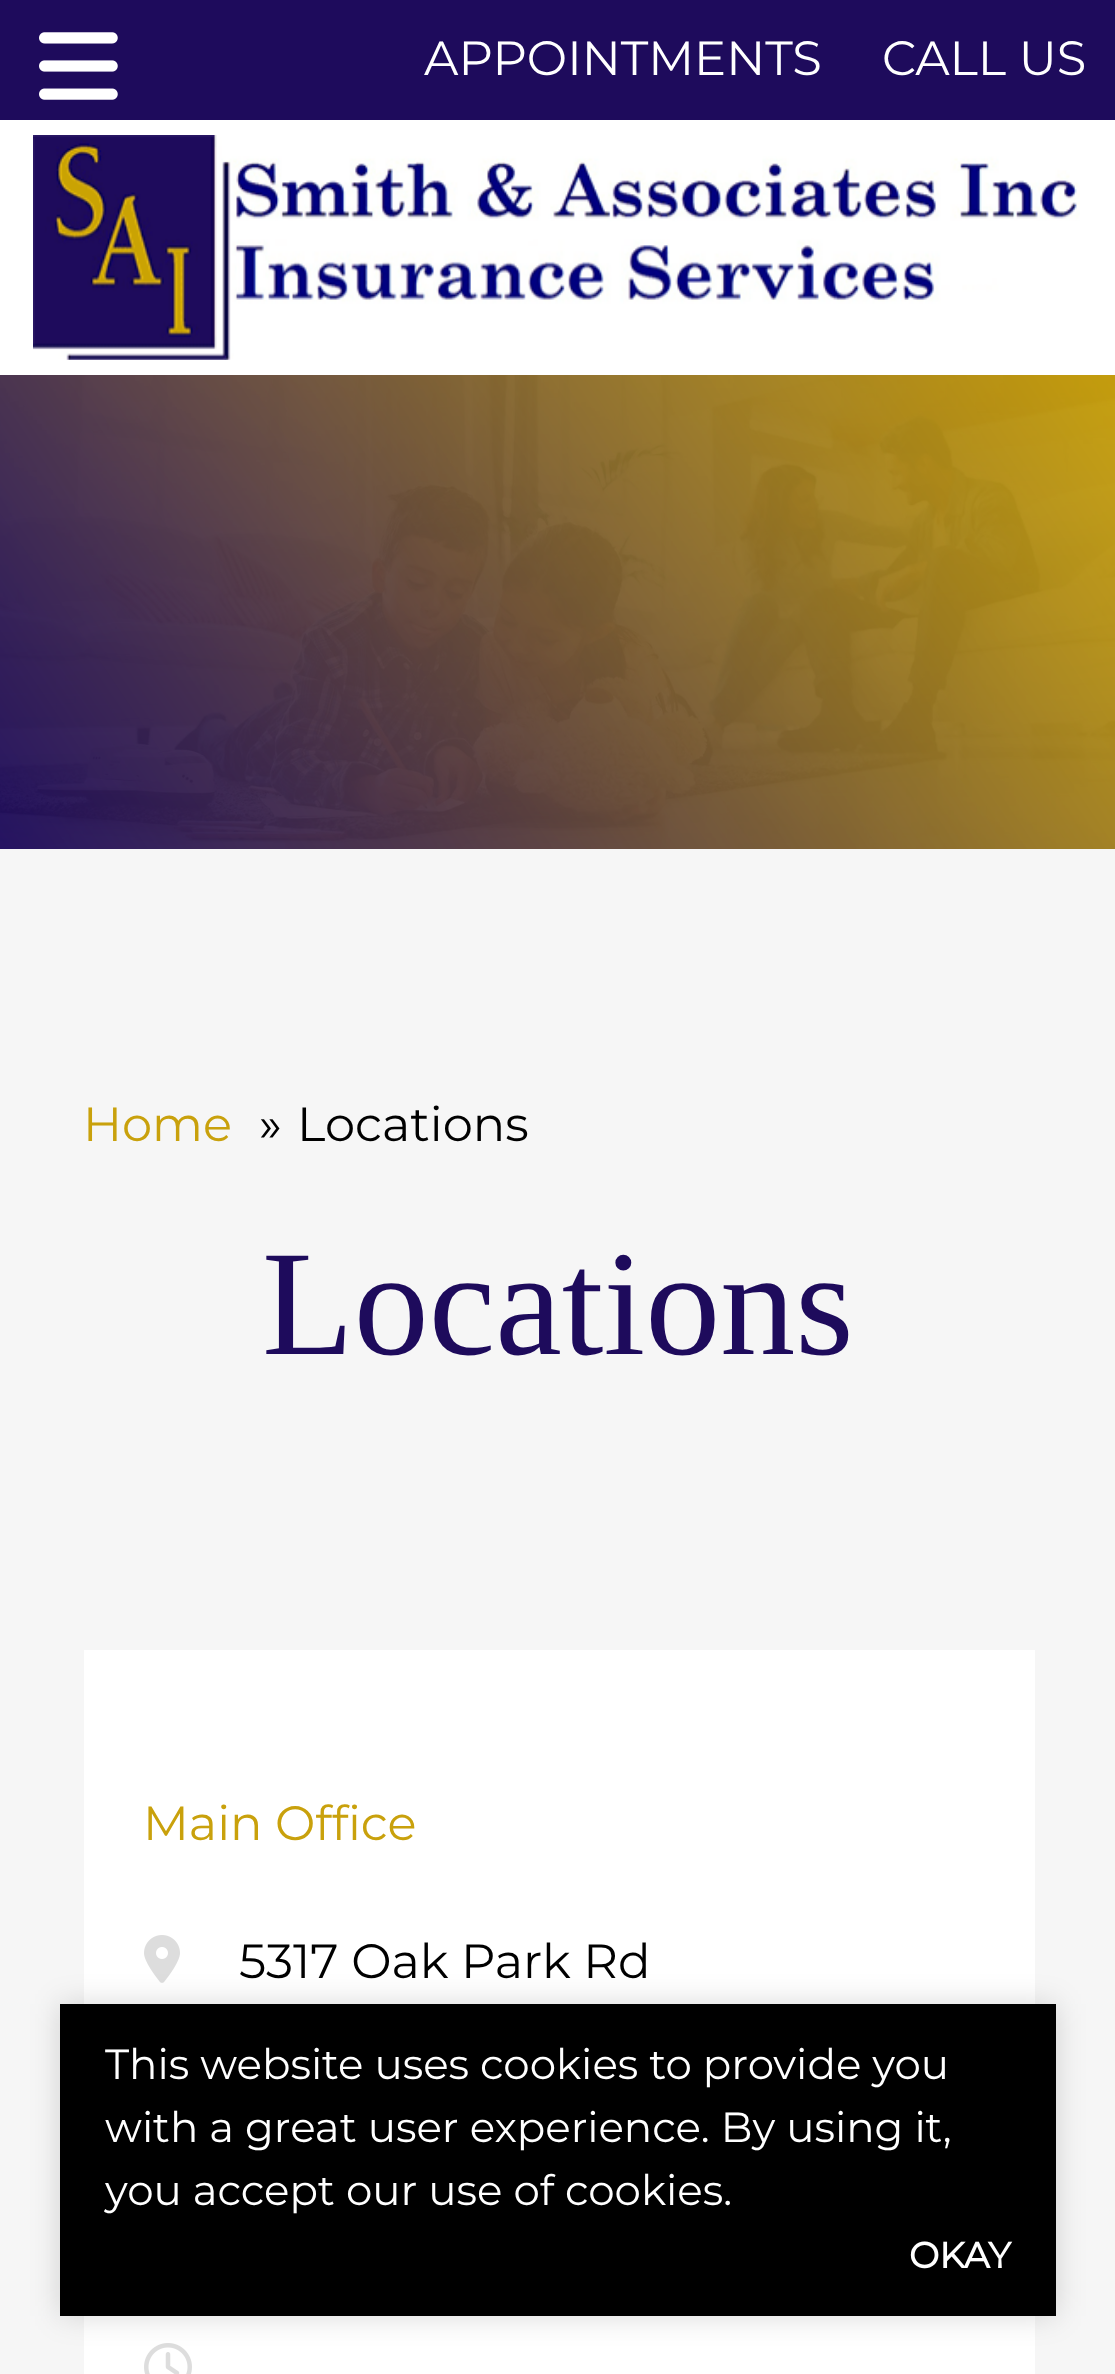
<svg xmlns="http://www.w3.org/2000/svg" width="1115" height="2374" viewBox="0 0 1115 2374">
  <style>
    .t1 { font: 100 48px Montserrat; fill: #fff; }
    .t2 { font: 100 48px Montserrat; fill: #c9a10c; }
    .t3 { font: 100 48px Montserrat; fill: #000; }
    .t4 { font: 150px Liberation Serif; fill: #1e0b5c; }
    .t5 { font: 100 42px Montserrat; fill: #fff; }
    .t6 { font: bold 36px Montserrat; fill: #fff; }
  </style>
  <rect width="100%" height="100%" fill="#fff"/>
  <rect x="0" y="0" width="1115" height="120" fill="#1e0b5c"/>
  <image x="39" y="32" width="79" height="68" href="images/1.png"/>
  <text x="424" y="75" class="t1">APPOINTMENTS</text>
  <text x="882" y="75" class="t1">CALL US</text>
  <image x="33" y="135" width="1047" height="225" href="images/2.png"/>
  <image x="0" y="375" width="1115" height="474" href="images/3.png"/>
  <rect x="0" y="849" width="1115" height="1525" fill="#f6f6f6"/>
  <text x="83" y="1141" class="t2">Home</text>
  <text x="259" y="1141" class="t3">»</text>
  <text x="297" y="1141" class="t3">Locations</text>
  <text x="262" y="1354" class="t4">Locations</text>
  <rect x="84" y="1650" width="951" height="724" fill="#fff"/>
  <text x="143" y="1840" class="t2">Main Office</text>
  <image x="144" y="1935" width="36" height="48" href="images/4.png"/>
  <text x="239" y="1978" class="t3">5317 Oak Park Rd</text>
  <image x="144" y="2343" width="48" height="31" href="images/5.png"/>
  <rect x="60" y="2004" width="996" height="312" fill="#00000026" filter="blur(15px)"/>
  <rect x="60" y="2004" width="996" height="312" fill="#000"/>
  <text x="105" y="2079" class="t5">This website uses cookies to provide you</text>
  <text x="105" y="2142" class="t5">with a great user experience. By using it,</text>
  <text x="105" y="2205" class="t5">you accept our use of cookies.</text>
  <text x="909" y="2268" class="t6">OKAY</text>
</svg>
